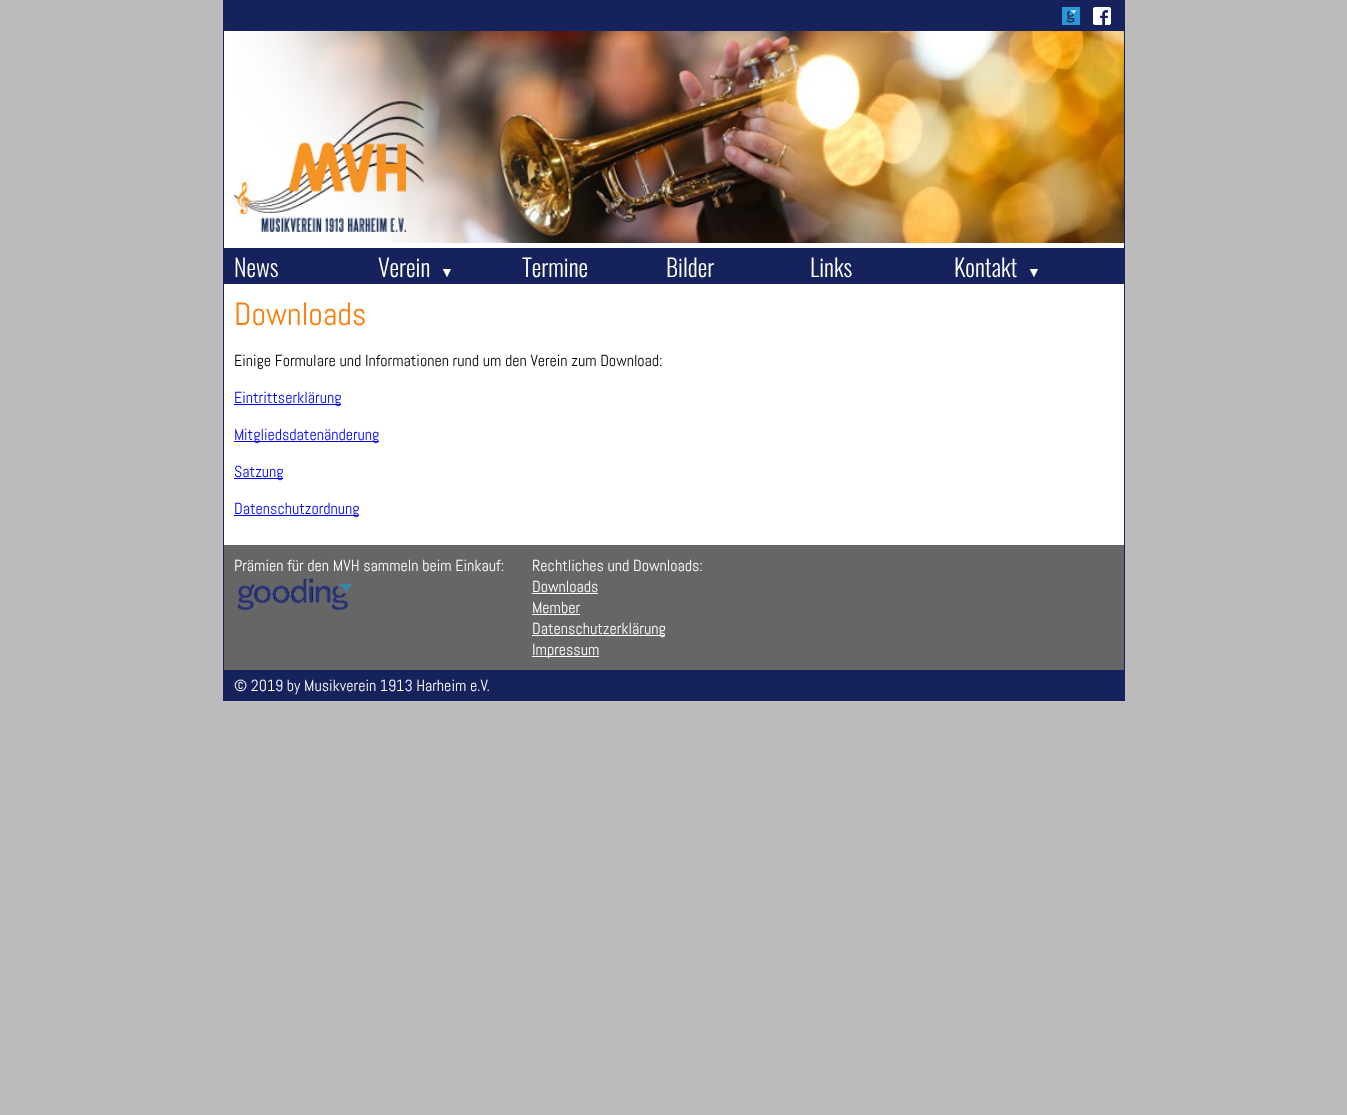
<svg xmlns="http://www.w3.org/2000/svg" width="1347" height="1115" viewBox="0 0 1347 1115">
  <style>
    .t1 { font: 300 24px Oswald; fill: #fff; }
    .t2 { font: 14px Liberation Sans; fill: #fff; }
    .t3 { font: 32px Abel; fill: #f97d09; }
    .t4 { font: 16px Abel; fill: #000; }
    .t5 { font: 16px Abel; fill: #00e; }
    .t6 { font: 16px Abel; fill: #fff; }
  </style>
  <rect width="100%" height="100%" fill="#bbb"/>
  <rect x="224" y="31" width="900" height="514" fill="#fff"/>
  <rect x="1124" y="0" width="1" height="701" fill="#16225b"/>
  <rect x="223" y="0" width="1" height="701" fill="#16225b"/>
  <rect x="224" y="0" width="900" height="31" fill="#16225b"/>
  <image x="1062" y="7" width="18" height="18" href="images/1.png"/>
  <image x="1093" y="7" width="18" height="18" href="images/2.png"/>
  <image x="233" y="31" width="891" height="212" href="images/3.png"/>
  <rect x="224" y="248" width="900" height="36" fill="#16225b"/>
  <text x="234" y="277" class="t1">News</text>
  <text x="378" y="277" class="t1">Verein</text>
  <text x="440" y="277" class="t2">▼</text>
  <text x="522" y="277" class="t1">Termine</text>
  <text x="666" y="277" class="t1">Bilder</text>
  <text x="810" y="277" class="t1">Links</text>
  <text x="954" y="277" class="t1">Kontakt</text>
  <text x="1027" y="277" class="t2">▼</text>
  <text x="234" y="325" class="t3">Downloads</text>
  <text x="234" y="366" class="t4">Einige Formulare und Informationen rund um den Verein zum Download:</text>
  <rect x="234" y="404" width="107" height="1" fill="#00e"/>
  <text x="234" y="403" class="t5">Eintrittserklärung</text>
  <rect x="234" y="441" width="145" height="1" fill="#00e"/>
  <text x="234" y="440" class="t5">Mitgliedsdatenänderung</text>
  <rect x="234" y="478" width="49" height="1" fill="#00e"/>
  <text x="234" y="477" class="t5">Satzung</text>
  <rect x="234" y="515" width="125" height="1" fill="#00e"/>
  <text x="234" y="514" class="t5">Datenschutzordnung</text>
  <rect x="224" y="545" width="900" height="125" fill="#666"/>
  <text x="234" y="571" class="t6">Prämien für den MVH sammeln beim Einkauf:</text>
  <image x="237" y="578" width="115" height="33" href="images/4.png"/>
  <text x="532" y="571" class="t6">Rechtliches und Downloads:</text>
  <text x="532" y="592" class="t6">Downloads</text>
  <rect x="532" y="593" width="66" height="1" fill="#fff"/>
  <text x="532" y="613" class="t6">Member</text>
  <rect x="532" y="614" width="48" height="1" fill="#fff"/>
  <rect x="532" y="635" width="133" height="1" fill="#fff"/>
  <text x="532" y="634" class="t6">Datenschutzerklärung</text>
  <rect x="532" y="656" width="67" height="1" fill="#fff"/>
  <text x="532" y="655" class="t6">Impressum</text>
  <rect x="224" y="670" width="900" height="31" fill="#16225b"/>
  <text x="234" y="691" class="t6">© 2019 by Musikverein 1913 Harheim e.V.</text>
</svg>
